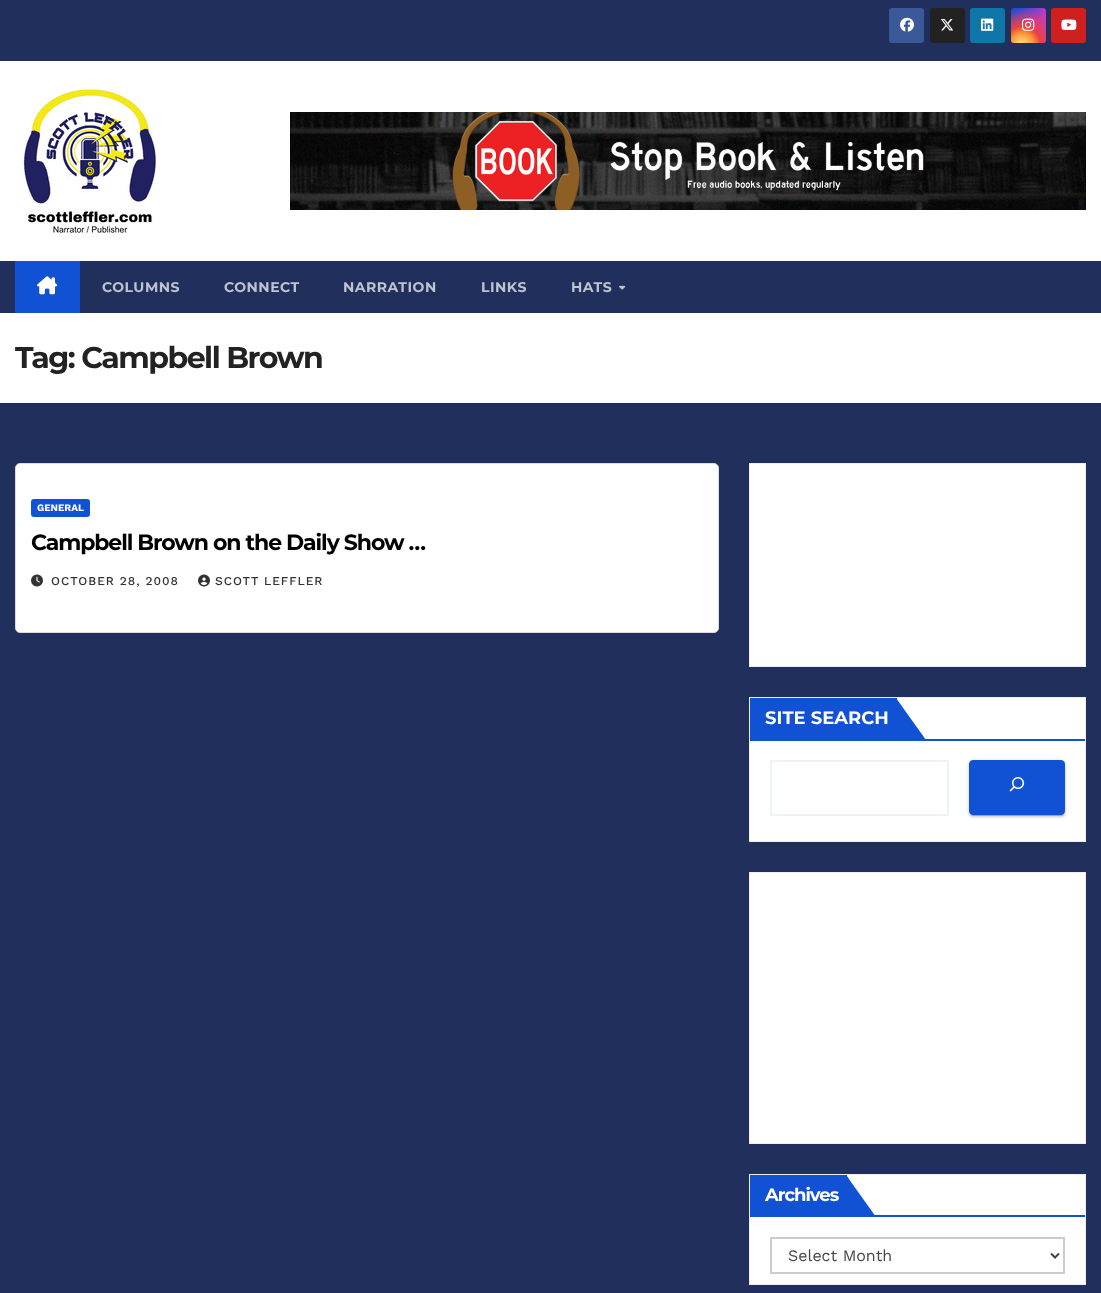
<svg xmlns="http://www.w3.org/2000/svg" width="1101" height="1293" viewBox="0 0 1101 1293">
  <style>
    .t1 { font: bold 14px Montserrat; letter-spacing: 0.5px; fill: #bec3cf; }
    .t2 { font: bold 30px Montserrat; letter-spacing: -1.5px; fill: #222; }
    .t3 { font: bold 10px Work Sans; fill: #fff; }
    .t4 { font: bold 22px Montserrat; letter-spacing: -1.1px; fill: #000; }
    .t5 { font: 500 12px Work Sans; letter-spacing: 1px; fill: #333; }
    .t6 { font: bold 18px Montserrat; fill: #fff; }
    .t7 { font: bold 18px Montserrat; letter-spacing: -1px; fill: #fff; }
    .t8 { font: 16px Work Sans; fill: #444; }
  </style>
  <defs>
    <linearGradient id="g1" gradientUnits="userSpaceOnUse" x1="1011" y1="8" x2="1046" y2="43"><stop offset="0.12" stop-color="#234bd7"/><stop offset="0.58" stop-color="#c33cbe"/></linearGradient>
    <radialGradient id="g2" gradientUnits="userSpaceOnUse" cx="1022" cy="45" r="44"><stop offset="0" stop-color="#ffe17d"/><stop offset="0.1" stop-color="#ffcd69"/><stop offset="0.28" stop-color="#fa9137"/><stop offset="0.42" stop-color="#eb4141"/><stop offset="0.82" stop-color="#eb4141" stop-opacity="0"/></radialGradient>
  </defs>
  <rect width="100%" height="100%" fill="#202f5b"/>
  <rect x="889" y="8" width="35" height="35" rx="3" fill="#3b5998"/>
  <image x="900" y="17" width="14" height="15" href="images/1.png"/>
  <rect x="930" y="8" width="35" height="35" rx="3" fill="#222"/>
  <image x="940" y="19" width="14" height="12" href="images/2.png"/>
  <rect x="970" y="8" width="35" height="35" rx="3" fill="#0e76a8"/>
  <image x="981" y="18" width="13" height="13" href="images/3.png"/>
  <rect x="1011" y="8" width="35" height="35" rx="3" fill="url(#g1)"/>
  <rect x="1011" y="8" width="35" height="35" rx="3" fill="url(#g2)"/>
  <image x="1022" y="18" width="13" height="13" href="images/4.png"/>
  <rect x="1051" y="8" width="35" height="35" rx="3" fill="#cd201f"/>
  <image x="1061" y="19" width="16" height="11" href="images/5.png"/>
  <rect x="0" y="61" width="1101" height="200" fill="#fff"/>
  <image x="23" y="89" width="133" height="144" href="images/6.png"/>
  <image x="290" y="112" width="796" height="98" href="images/7.png"/>
  <rect x="0" y="314" width="1101" height="90" fill="#00000026" filter="blur(1.5px)"/>
  <rect x="15" y="261" width="65" height="52" fill="#1151d3"/>
  <image x="37" y="276" width="21" height="19" href="images/8.png"/>
  <text x="102" y="292" class="t1">COLUMNS</text>
  <text x="224" y="292" class="t1">CONNECT</text>
  <text x="343" y="292" class="t1">NARRATION</text>
  <text x="481" y="292" class="t1">LINKS</text>
  <text x="571" y="292" class="t1">HATS</text>
  <image x="619" y="285" width="7" height="5" href="images/9.png"/>
  <rect x="0" y="313" width="1101" height="90" fill="#fff"/>
  <text x="15" y="368" class="t2">Tag: Campbell Brown</text>
  <rect x="15.5" y="463.5" width="703" height="169" rx="4.5" fill="#fff" stroke="#dddcdc"/>
  <rect x="31" y="499" width="59" height="18" rx="3" fill="#1151d3"/>
  <text x="37" y="511" class="t3">GENERAL</text>
  <text x="31" y="550" class="t4">Campbell Brown on the Daily Show …</text>
  <image x="31" y="574" width="12" height="13" href="images/10.png"/>
  <text x="51" y="585" class="t5">OCTOBER 28, 2008</text>
  <image x="198" y="574" width="12" height="13" href="images/11.png"/>
  <text x="215" y="585" class="t5">SCOTT LEFFLER</text>
  <rect x="749.5" y="463.5" width="336" height="203" fill="#fff" stroke="#eee"/>
  <rect x="749.5" y="697.5" width="336" height="144" fill="#fff" stroke="#eee"/>
  <rect x="750" y="698" width="147" height="41" fill="#1151d3"/>
  <text x="765" y="724" class="t6">SITE SEARCH</text>
  <path d="M926 740H896V698Z" fill="#1151d3"/>
  <rect x="750" y="739" width="335" height="2" fill="#1151d3"/>
  <rect x="771" y="761" width="177" height="54" fill="none" stroke="#eef3fb" stroke-width="2"/>
  <rect x="969" y="761" width="96" height="55" rx="4" fill="#0000001f" filter="blur(2.5px)"/>
  <rect x="971" y="765" width="92" height="51" rx="2" fill="#00000033" filter="blur(0.5px)"/>
  <rect x="969" y="762" width="96" height="55" rx="4" fill="#00000024" filter="blur(1px)"/>
  <rect x="969.5" y="760.5" width="95" height="54" rx="3.5" fill="#1151d3" stroke="#1151d3"/>
  <image x="1009" y="777" width="16" height="15" href="images/12.png"/>
  <rect x="749.5" y="872.5" width="336" height="271" fill="#fff" stroke="#eee"/>
  <rect x="749.5" y="1174.5" width="336" height="110" fill="#fff" stroke="#eee"/>
  <rect x="750" y="1215" width="335" height="2" fill="#1151d3"/>
  <rect x="750" y="1175" width="97" height="40" fill="#1151d3"/>
  <text x="765" y="1201" class="t7">Archives</text>
  <path d="M846 1175L876 1217H846Z" fill="#1151d3"/>
  <path d="M846 1175L849 1179V1214L846 1217Z" fill="#1151d3"/>
  <rect x="771" y="1238" width="293" height="35" fill="none" stroke="#ccc" stroke-width="2"/>
  <path d="M1051 1253.5L1055 1257.5L1059 1253.5" fill="none" stroke="#444" stroke-width="2"/>
  <text x="788" y="1261" class="t8">Select Month</text>
</svg>
